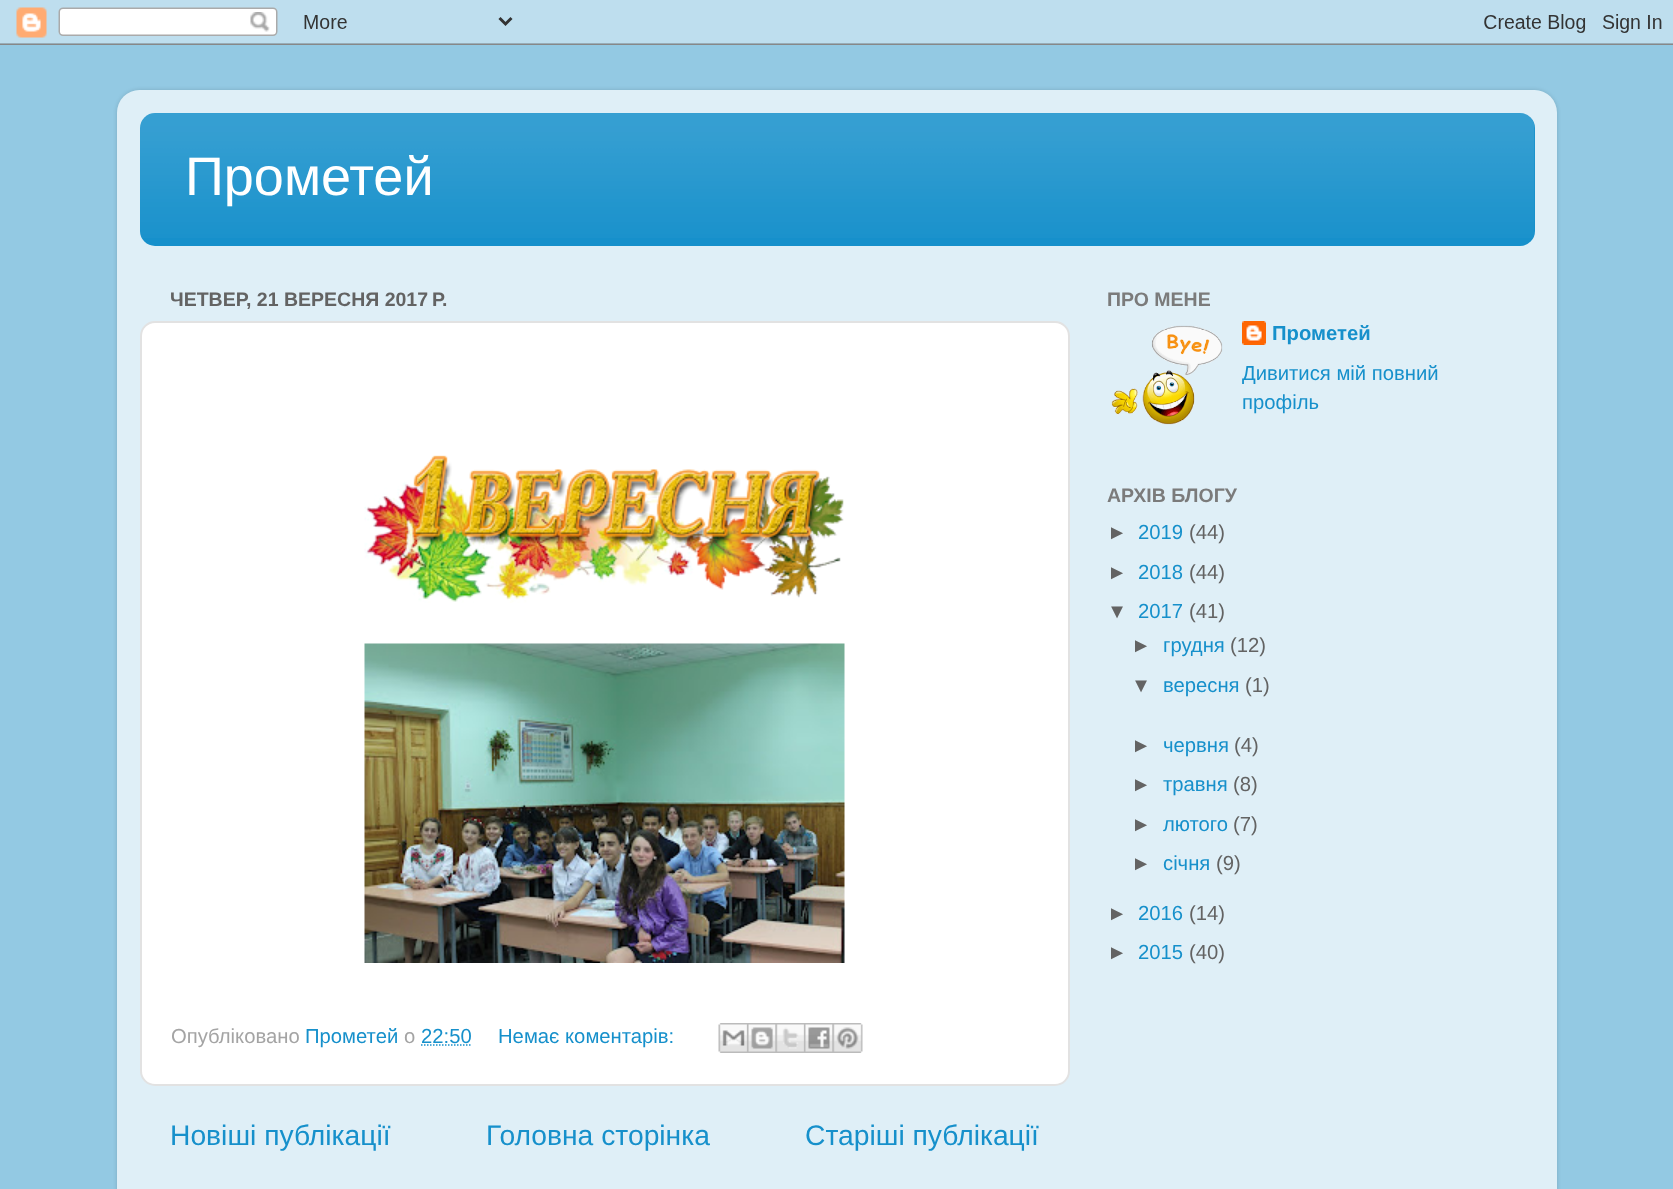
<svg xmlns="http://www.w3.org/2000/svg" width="1673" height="1189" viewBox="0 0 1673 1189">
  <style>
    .t1 { font: 54px Liberation Sans; fill: #fff; }
    .t2 { font: bold 19.5px Liberation Sans; fill: #636363; }
    .t3 { font: 20.25px Liberation Sans; fill: #a4a4a4; }
    .t4 { font: 20.25px Liberation Sans; fill: #1690cb; }
    .t5 { font: 28.25px Liberation Sans; fill: #1690cb; }
    .t6 { font: bold 19.5px Liberation Sans; fill: #7b7b7b; }
    .t7 { font: bold 20.25px Liberation Sans; fill: #1690cb; }
    .t8 { font: 20.25px Liberation Sans; fill: #636363; }
  </style>
  <defs>
    <clipPath id="clip1"><path d="M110 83H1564V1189H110ZM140 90H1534C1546.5 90 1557 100.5 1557 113V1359C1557 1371.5 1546.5 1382 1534 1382H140C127.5 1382 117 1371.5 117 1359V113C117 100.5 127.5 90 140 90Z" clip-rule="evenodd"/></clipPath>
  </defs>
  <rect width="100%" height="100%" fill="#93c9e3"/>
  <image x="0" y="0" width="1673" height="45" href="images/1.png"/>
  <g clip-path="url(#clip1)">
    <rect x="117" y="90" width="1440" height="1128" rx="23" fill="#00000026" filter="blur(2px)"/>
  </g>
  <image x="117" y="90" width="1440" height="1099" href="images/2.png"/>
  <rect x="140" y="113" width="1395" height="133" rx="15" fill="#1690cb"/>
  <image x="140" y="113" width="1395" height="125" href="images/3.png"/>
  <text x="185" y="195" class="t1">Прометей</text>
  <text x="170" y="306" class="t2">ЧЕТВЕР, 21 ВЕРЕСНЯ 2017 Р.</text>
  <rect x="141" y="322" width="928" height="763" rx="14" fill="#fff" stroke="#e2e2e2" stroke-width="2"/>
  <image x="364" y="455" width="480" height="148" href="images/4.png"/>
  <image x="364" y="643" width="481" height="320" href="images/5.png"/>
  <text x="171" y="1043" class="t3">Опубліковано</text>
  <text x="305" y="1043" class="t4">Прометей</text>
  <text x="404" y="1043" class="t3">о</text>
  <text x="421" y="1043" class="t4">22:50</text>
  <path d="M421 1045H472" fill="none" stroke="#1690cb" stroke-width="1.5" stroke-dasharray="1.5 1.5"/>
  <text x="498" y="1043" class="t4">Немає коментарів:</text>
  <image x="718" y="1023" width="29" height="30" href="images/6.png"/>
  <image x="747" y="1023" width="29" height="30" href="images/7.png"/>
  <image x="775" y="1023" width="29" height="30" href="images/8.png"/>
  <image x="804" y="1023" width="29" height="30" href="images/9.png"/>
  <image x="832" y="1023" width="31" height="30" href="images/10.png"/>
  <text x="170" y="1145" class="t5">Новіші публікації</text>
  <text x="486" y="1145" class="t5">Головна сторінка</text>
  <text x="805" y="1145" class="t5">Старіші публікації</text>
  <text x="1107" y="306" class="t6">ПРО МЕНЕ</text>
  <image x="1111" y="325" width="112" height="100" href="images/11.png"/>
  <image x="1242" y="321" width="24" height="24" href="images/12.png"/>
  <text x="1272" y="340" class="t7">Прометей</text>
  <text x="1242" y="380" class="t4">Дивитися мій повний</text>
  <text x="1242" y="409" class="t4">профіль</text>
  <text x="1107" y="502" class="t6">АРХІВ БЛОГУ</text>
  <text x="1107" y="539" class="t8">►</text>
  <text x="1138" y="539" class="t4">2019</text>
  <text x="1189" y="539" class="t8">(44)</text>
  <text x="1107" y="579" class="t8">►</text>
  <text x="1138" y="579" class="t4">2018</text>
  <text x="1189" y="579" class="t8">(44)</text>
  <text x="1107" y="618" class="t8">▼</text>
  <text x="1138" y="618" class="t4">2017</text>
  <text x="1189" y="618" class="t8">(41)</text>
  <text x="1131" y="652" class="t8">►</text>
  <text x="1163" y="652" class="t4">грудня</text>
  <text x="1230" y="652" class="t8">(12)</text>
  <text x="1131" y="692" class="t8">▼</text>
  <text x="1163" y="692" class="t4">вересня</text>
  <text x="1245" y="692" class="t8">(1)</text>
  <text x="1131" y="752" class="t8">►</text>
  <text x="1163" y="752" class="t4">червня</text>
  <text x="1234" y="752" class="t8">(4)</text>
  <text x="1131" y="791" class="t8">►</text>
  <text x="1163" y="791" class="t4">травня</text>
  <text x="1233" y="791" class="t8">(8)</text>
  <text x="1131" y="831" class="t8">►</text>
  <text x="1163" y="831" class="t4">лютого</text>
  <text x="1233" y="831" class="t8">(7)</text>
  <text x="1131" y="870" class="t8">►</text>
  <text x="1163" y="870" class="t4">січня</text>
  <text x="1216" y="870" class="t8">(9)</text>
  <text x="1107" y="920" class="t8">►</text>
  <text x="1138" y="920" class="t4">2016</text>
  <text x="1189" y="920" class="t8">(14)</text>
  <text x="1107" y="959" class="t8">►</text>
  <text x="1138" y="959" class="t4">2015</text>
  <text x="1189" y="959" class="t8">(40)</text>
</svg>
